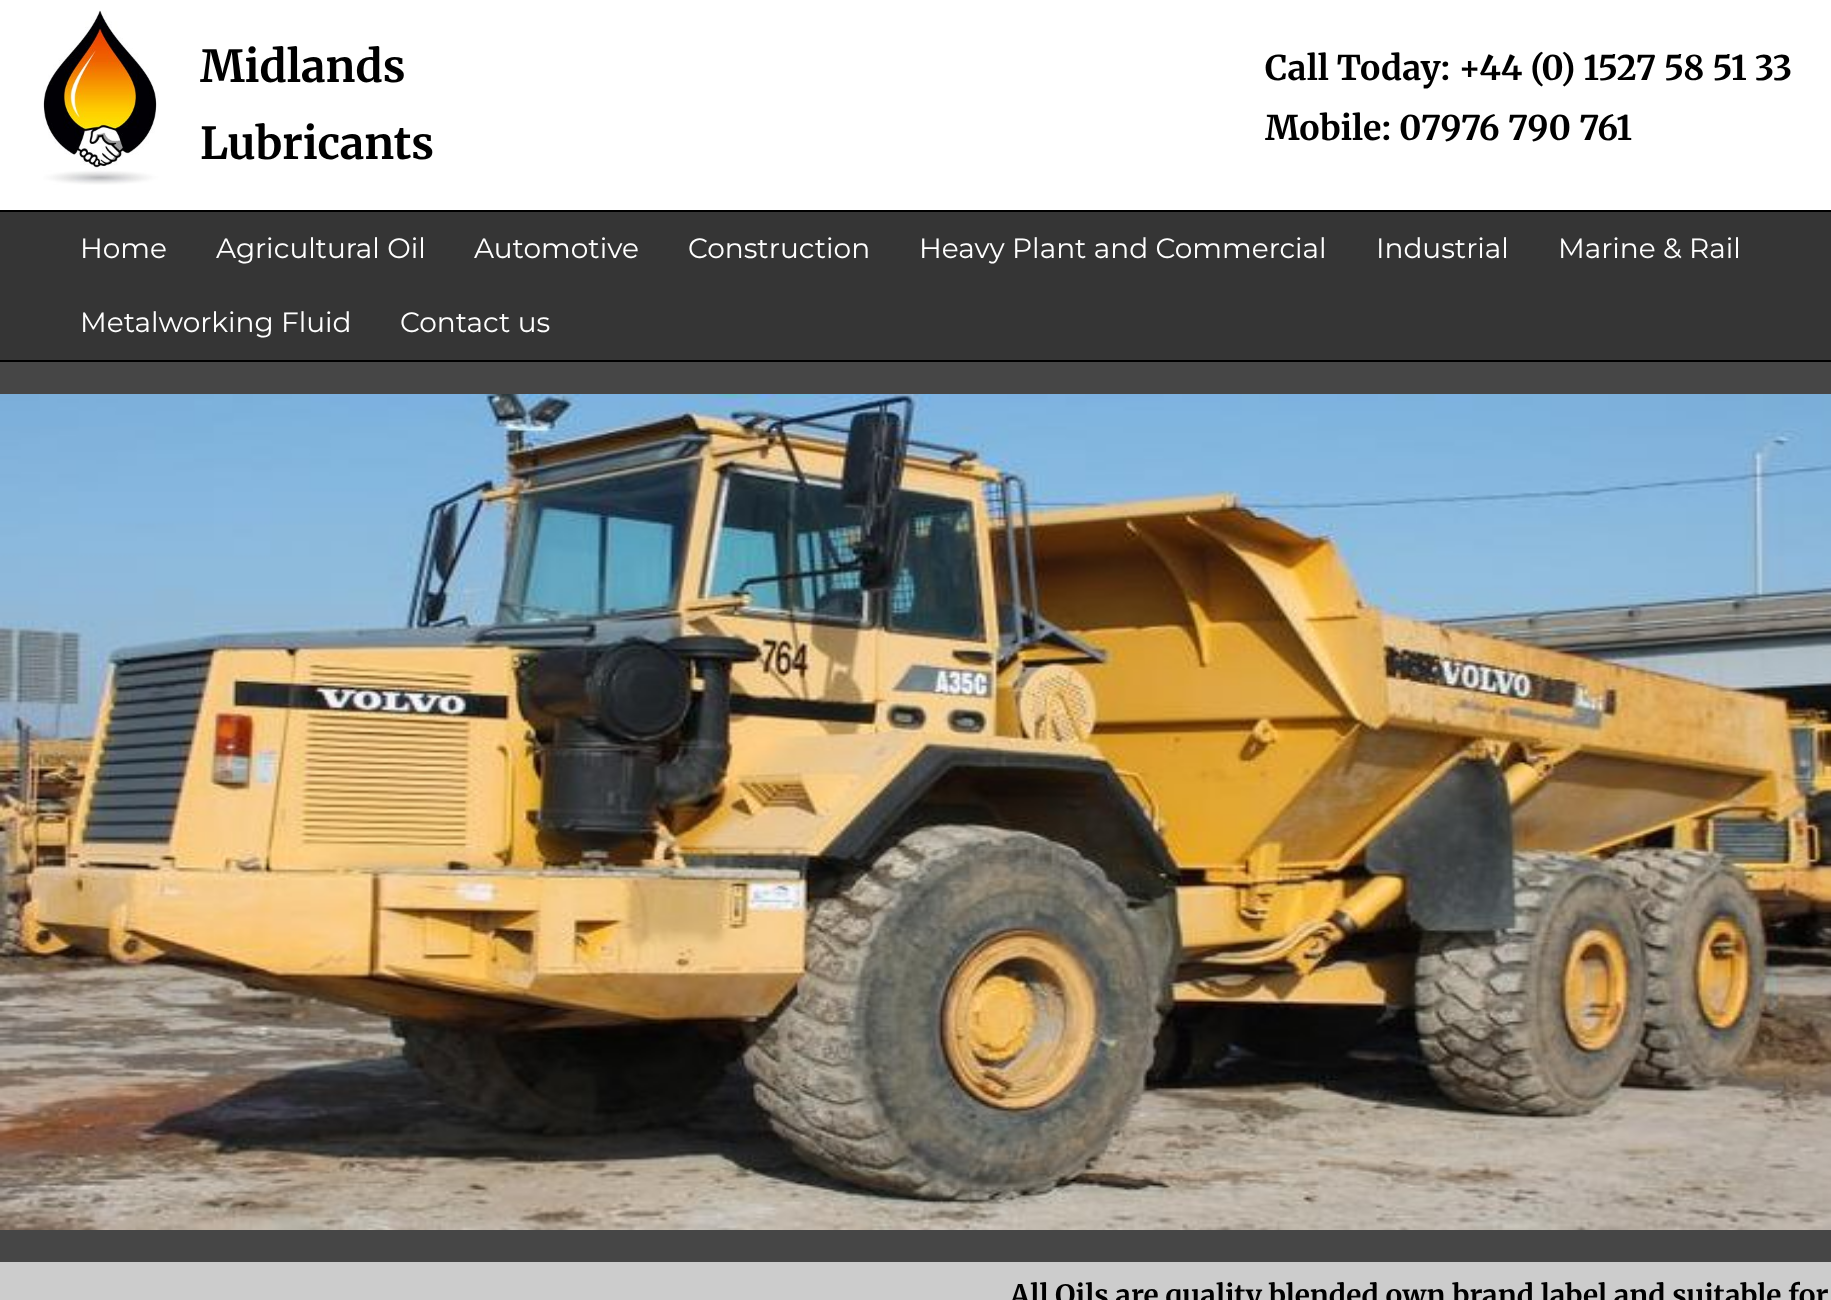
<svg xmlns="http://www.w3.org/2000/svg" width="1831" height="1300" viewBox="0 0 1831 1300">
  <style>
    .t1 { font: bold 44px Merriweather; fill: #000; }
    .t2 { font: bold 34px Merriweather; fill: #000; }
    .t3 { font: 28px Montserrat; fill: #fff; }
    .t4 { font: bold 28px Merriweather; fill: #000; }
  </style>
  <rect width="100%" height="100%" fill="#fff"/>
  <image x="43" y="10" width="116" height="175" href="images/1.png"/>
  <text x="200" y="82" class="t1">Midlands</text>
  <text x="200" y="159" class="t1">Lubricants</text>
  <text x="1265" y="80" class="t2">Call Today: +44 (0) 1527 58 51 33</text>
  <text x="1265" y="140" class="t2">Mobile: 07976 790 761</text>
  <rect x="0" y="212" width="1831" height="148" fill="#353535"/>
  <rect x="0" y="210" width="1831" height="2" fill="#000"/>
  <rect x="0" y="360" width="1831" height="2" fill="#000"/>
  <text x="80" y="258" class="t3">Home</text>
  <text x="216" y="258" class="t3">Agricultural Oil</text>
  <text x="474" y="258" class="t3">Automotive</text>
  <text x="688" y="258" class="t3">Construction</text>
  <text x="919" y="258" class="t3">Heavy Plant and Commercial</text>
  <text x="1376" y="258" class="t3">Industrial</text>
  <text x="1558" y="258" class="t3">Marine &amp; Rail</text>
  <text x="80" y="332" class="t3">Metalworking Fluid</text>
  <text x="400" y="332" class="t3">Contact us</text>
  <rect x="0" y="362" width="1831" height="900" fill="#464646"/>
  <image x="0" y="394" width="1831" height="836" href="images/2.png"/>
  <rect x="0" y="1262" width="1831" height="38" fill="#ccc"/>
  <text x="1010" y="1305" class="t4">All Oils are quality blended own brand label and suitable for</text>
</svg>
